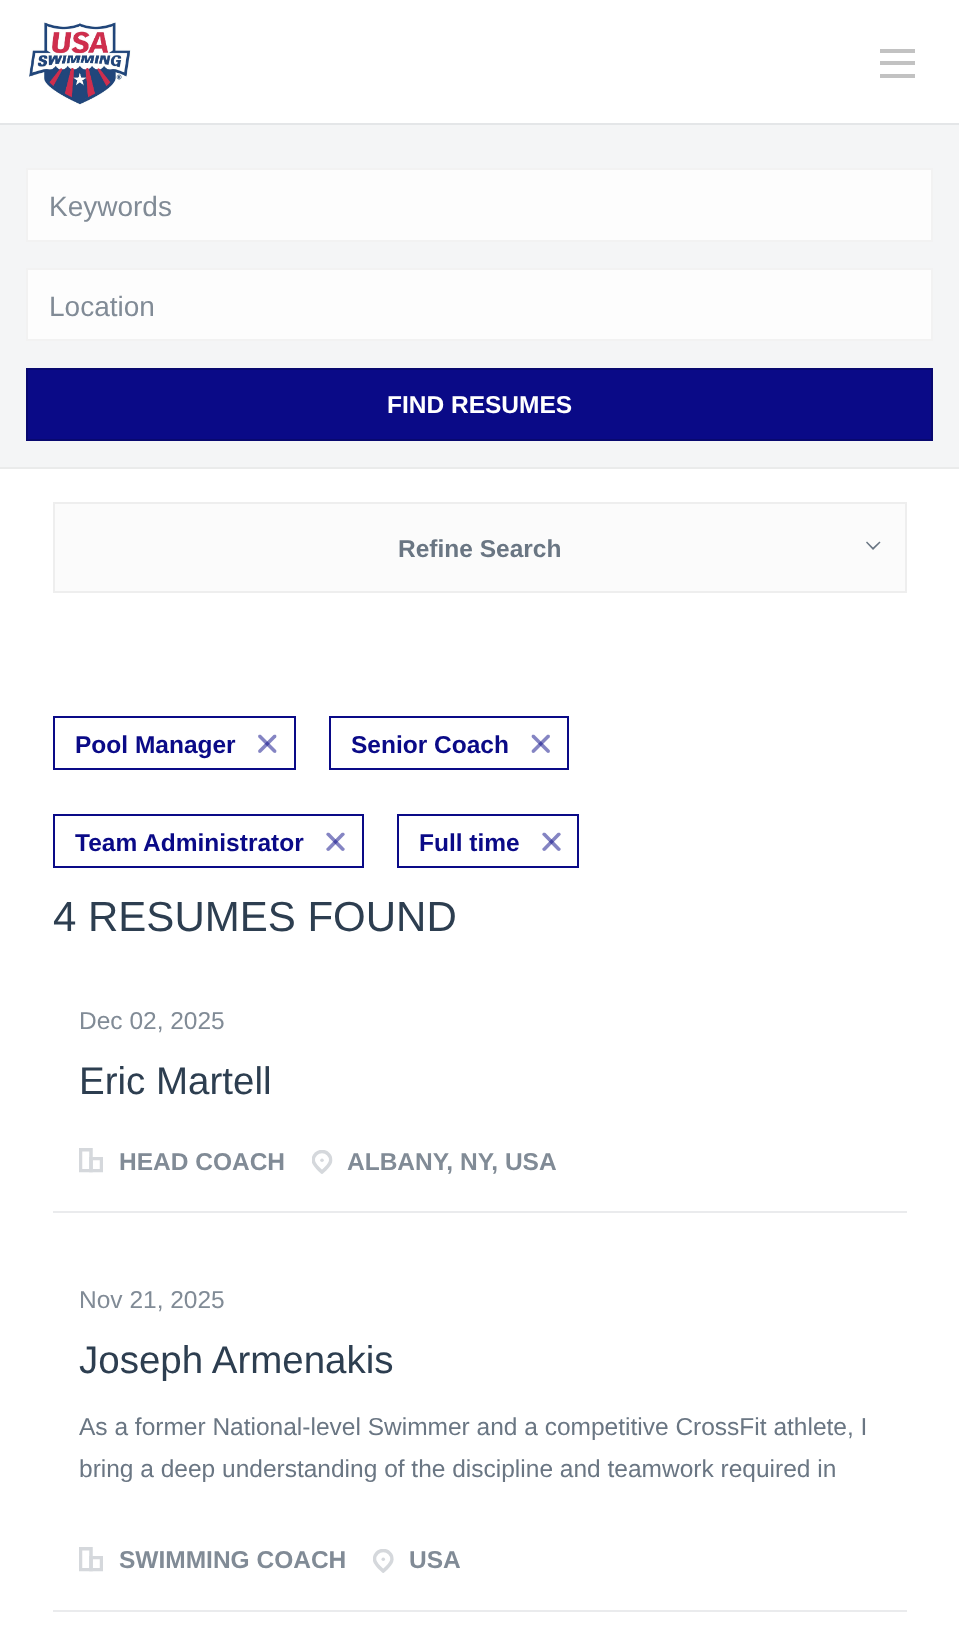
<svg xmlns="http://www.w3.org/2000/svg" width="959" height="1627" viewBox="0 0 959 1627">
  <style>
    .t1 { font: 28px Liberation Sans; fill: #818b96; }
    .t2 { font: bold 24.5px Liberation Sans; fill: #fff; }
    .t3 { font: bold 24.5px Liberation Sans; fill: #6a7683; }
    .t4 { font: bold 24.5px Liberation Sans; fill: #0a0a87; }
    .t5 { font: 42px Liberation Sans; fill: #2d3e50; }
    .t6 { font: 24.5px Liberation Sans; fill: #818b96; }
    .t7 { font: 38.5px Liberation Sans; fill: #2d3e50; }
    .t8 { font: bold 24.5px Liberation Sans; fill: #818b96; }
    .t9 { font: 24.5px Liberation Sans; fill: #6a7683; }
  </style>
  <rect width="100%" height="100%" fill="#fff"/>
  <rect x="0" y="123" width="959" height="2" fill="#e4e6e8"/>
  <image x="29" y="22" width="102" height="83" href="images/1.png"/>
  <rect x="880" y="61" width="35" height="4" fill="#c2c2c2"/>
  <rect x="880" y="49" width="35" height="4" fill="#c2c2c2"/>
  <rect x="880" y="74" width="35" height="4" fill="#c2c2c2"/>
  <rect x="0" y="467" width="959" height="2" fill="#eaebeb"/>
  <rect x="0" y="125" width="959" height="342" fill="#f4f5f6"/>
  <rect x="27" y="169" width="905" height="72" fill="#fdfdfd" stroke="#f2f2f2" stroke-width="2"/>
  <text x="49" y="216" class="t1">Keywords</text>
  <rect x="27" y="269" width="905" height="71" fill="#fdfdfd" stroke="#f2f2f2" stroke-width="2"/>
  <text x="49" y="316" class="t1">Location</text>
  <rect x="27" y="369" width="905" height="71" fill="#0a0a87" stroke="#08086f" stroke-width="2"/>
  <text x="387" y="413" class="t2">FIND RESUMES</text>
  <rect x="54" y="503" width="852" height="89" fill="#fbfbfb" stroke="#eee" stroke-width="2"/>
  <text x="398" y="557" class="t3">Refine Search</text>
  <path d="M880.5 542.5L873 550V547.5L879.5 541.5ZM873 550L866 542.5L867 541.5L873 547.5Z" fill="#6a7683"/>
  <rect x="54" y="717" width="241" height="52" fill="none" stroke="#0a0a87" stroke-width="2"/>
  <path d="M258.5 750L273.5 735C274.5 734.5 275.5 734.5 276 735C276.5 736 276.5 737 276 737.5L261 752.5C260.5 753 259.5 753 258.5 752.5C258 751.5 258 750.5 258.5 750Z" fill="#8585c3"/>
  <text x="75" y="753" class="t4">Pool Manager</text>
  <path d="M261 735L276 750C276.5 750.5 276.5 751.5 276 752.5C275.5 753 274.5 753 273.5 752.5L258.5 737.5C258 737 258 736 258.5 735C259.5 734.5 260.5 734.5 261 735Z" fill="#0a0a8780"/>
  <rect x="330" y="717" width="238" height="52" fill="none" stroke="#0a0a87" stroke-width="2"/>
  <path d="M532 750L547 735C547.5 734.5 548.5 734.5 549.5 735C550 736 550 737 549.5 737.5L534.5 752.5C534 753 532.5 753 532 752.5C531.5 751.5 531.5 750.5 532 750Z" fill="#8585c3"/>
  <text x="351" y="753" class="t4">Senior Coach</text>
  <path d="M534.5 735L549.5 750C550 750.5 550 751.5 549.5 752.5C548.5 753 547.5 753 547 752.5L532 737.5C531.5 737 531.5 736 532 735C532.5 734.5 534 734.5 534.5 735Z" fill="#0a0a8780"/>
  <rect x="54" y="815" width="309" height="52" fill="none" stroke="#0a0a87" stroke-width="2"/>
  <path d="M327 848L341.5 833C342.5 832.5 343.5 832.5 344 833C345 834 345 835 344 835.5L329.5 850.5C328.5 851 327.5 851 327 850.5C326 849.5 326 848.5 327 848Z" fill="#8585c3"/>
  <text x="75" y="851" class="t4">Team Administrator</text>
  <path d="M329.5 833L344 848C345 848.5 345 849.5 344 850.5C343.5 851 342.5 851 341.5 850.5L327 835.5C326 835 326 834 327 833C327.5 832.5 328.5 832.5 329.5 833Z" fill="#0a0a8780"/>
  <rect x="398" y="815" width="180" height="52" fill="none" stroke="#0a0a87" stroke-width="2"/>
  <path d="M543 848L557.5 833C558.5 832.5 559.5 832.5 560 833C561 834 561 835 560 835.5L545.5 850.5C544.5 851 543.5 851 543 850.5C542 849.5 542 848.5 543 848Z" fill="#8585c3"/>
  <text x="419" y="851" class="t4">Full time</text>
  <path d="M545.5 833L560 848C561 848.5 561 849.5 560 850.5C559.5 851 558.5 851 557.5 850.5L543 835.5C542 835 542 834 543 833C543.5 832.5 544.5 832.5 545.5 833Z" fill="#0a0a8780"/>
  <text x="53" y="931" class="t5">4 RESUMES FOUND</text>
  <rect x="53" y="1211" width="854" height="2" fill="#eaebed"/>
  <text x="79" y="1029" class="t6">Dec 02, 2025</text>
  <text x="79" y="1094" class="t7">Eric Martell</text>
  <image x="79" y="1148" width="24" height="25" href="images/2.png"/>
  <text x="119" y="1170" class="t8">HEAD COACH</text>
  <image x="312" y="1150" width="21" height="24" href="images/3.png"/>
  <text x="347" y="1170" class="t8">ALBANY, NY, USA</text>
  <rect x="53" y="1610" width="854" height="2" fill="#eaebed"/>
  <text x="79" y="1308" class="t6">Nov 21, 2025</text>
  <text x="79" y="1373" class="t7">Joseph Armenakis</text>
  <text x="79" y="1435" class="t9">As a former National-level Swimmer and a competitive CrossFit athlete, I</text>
  <text x="79" y="1477" class="t9">bring a deep understanding of the discipline and teamwork required in</text>
  <image x="79" y="1547" width="24" height="25" href="images/2.png"/>
  <text x="119" y="1568" class="t8">SWIMMING COACH</text>
  <image x="373" y="1549" width="21" height="24" href="images/4.png"/>
  <text x="409" y="1568" class="t8">USA</text>
</svg>
